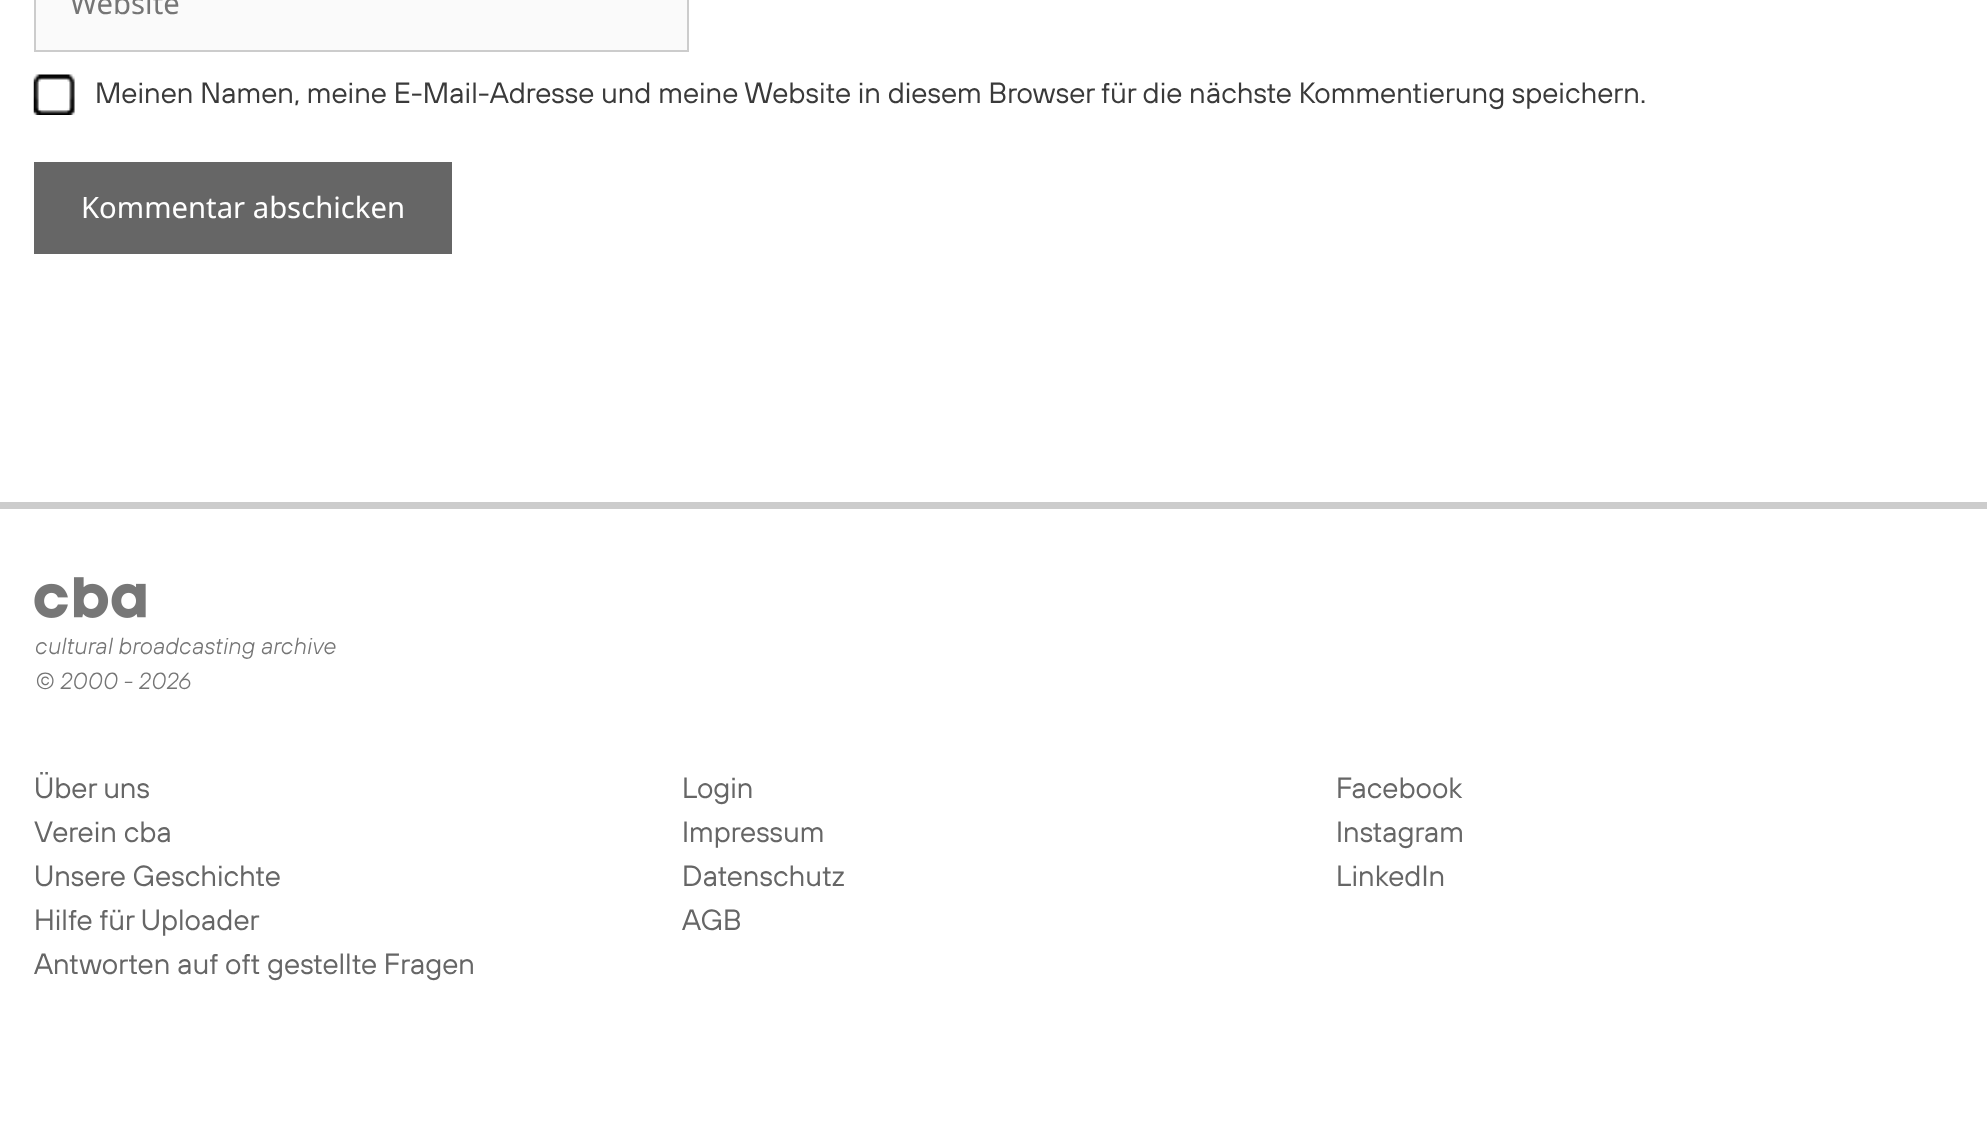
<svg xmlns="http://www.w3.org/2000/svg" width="1987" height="1122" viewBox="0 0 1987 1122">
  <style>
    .t1 { font: 29.25px Noto Sans; fill: #757575; }
    .t2 { font: 29.25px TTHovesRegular; fill: #3a3a3a; }
    .t3 { font: 29.25px Noto Sans; fill: #fff; }
    .t4 { font: 23.4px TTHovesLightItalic; fill: #757575; }
    .t5 { font: 29.25px TTHovesRegular; fill: #666; }
  </style>
  <rect width="100%" height="100%" fill="#fff"/>
  <rect x="35" y="-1" width="653" height="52" fill="#fafafa" stroke="#ccc" stroke-width="2"/>
  <text x="70" y="14" class="t1">Website</text>
  <image x="33" y="74" width="42" height="41" href="images/1.png"/>
  <text x="95" y="103" class="t2">Meinen Namen, meine E-Mail-Adresse und meine Website in diesem Browser für die nächste Kommentierung speichern.</text>
  <rect x="34" y="162" width="418" height="92" fill="#666"/>
  <text x="81" y="218" class="t3">Kommentar abschicken</text>
  <rect x="0" y="502" width="1987" height="7" fill="#ccc"/>
  <image x="34" y="577" width="112" height="41" href="images/2.png"/>
  <text x="34" y="654" class="t4">cultural broadcasting archive</text>
  <text x="34" y="689" class="t4">© 2000 - 2026</text>
  <text x="34" y="798" class="t5">Über uns</text>
  <text x="34" y="842" class="t5">Verein cba</text>
  <text x="34" y="886" class="t5">Unsere Geschichte</text>
  <text x="34" y="930" class="t5">Hilfe für Uploader</text>
  <text x="34" y="974" class="t5">Antworten auf oft gestellte Fragen</text>
  <text x="682" y="798" class="t5">Login</text>
  <text x="682" y="842" class="t5">Impressum</text>
  <text x="682" y="886" class="t5">Datenschutz</text>
  <text x="682" y="930" class="t5">AGB</text>
  <text x="1336" y="798" class="t5">Facebook</text>
  <text x="1336" y="842" class="t5">Instagram</text>
  <text x="1336" y="886" class="t5">LinkedIn</text>
</svg>
